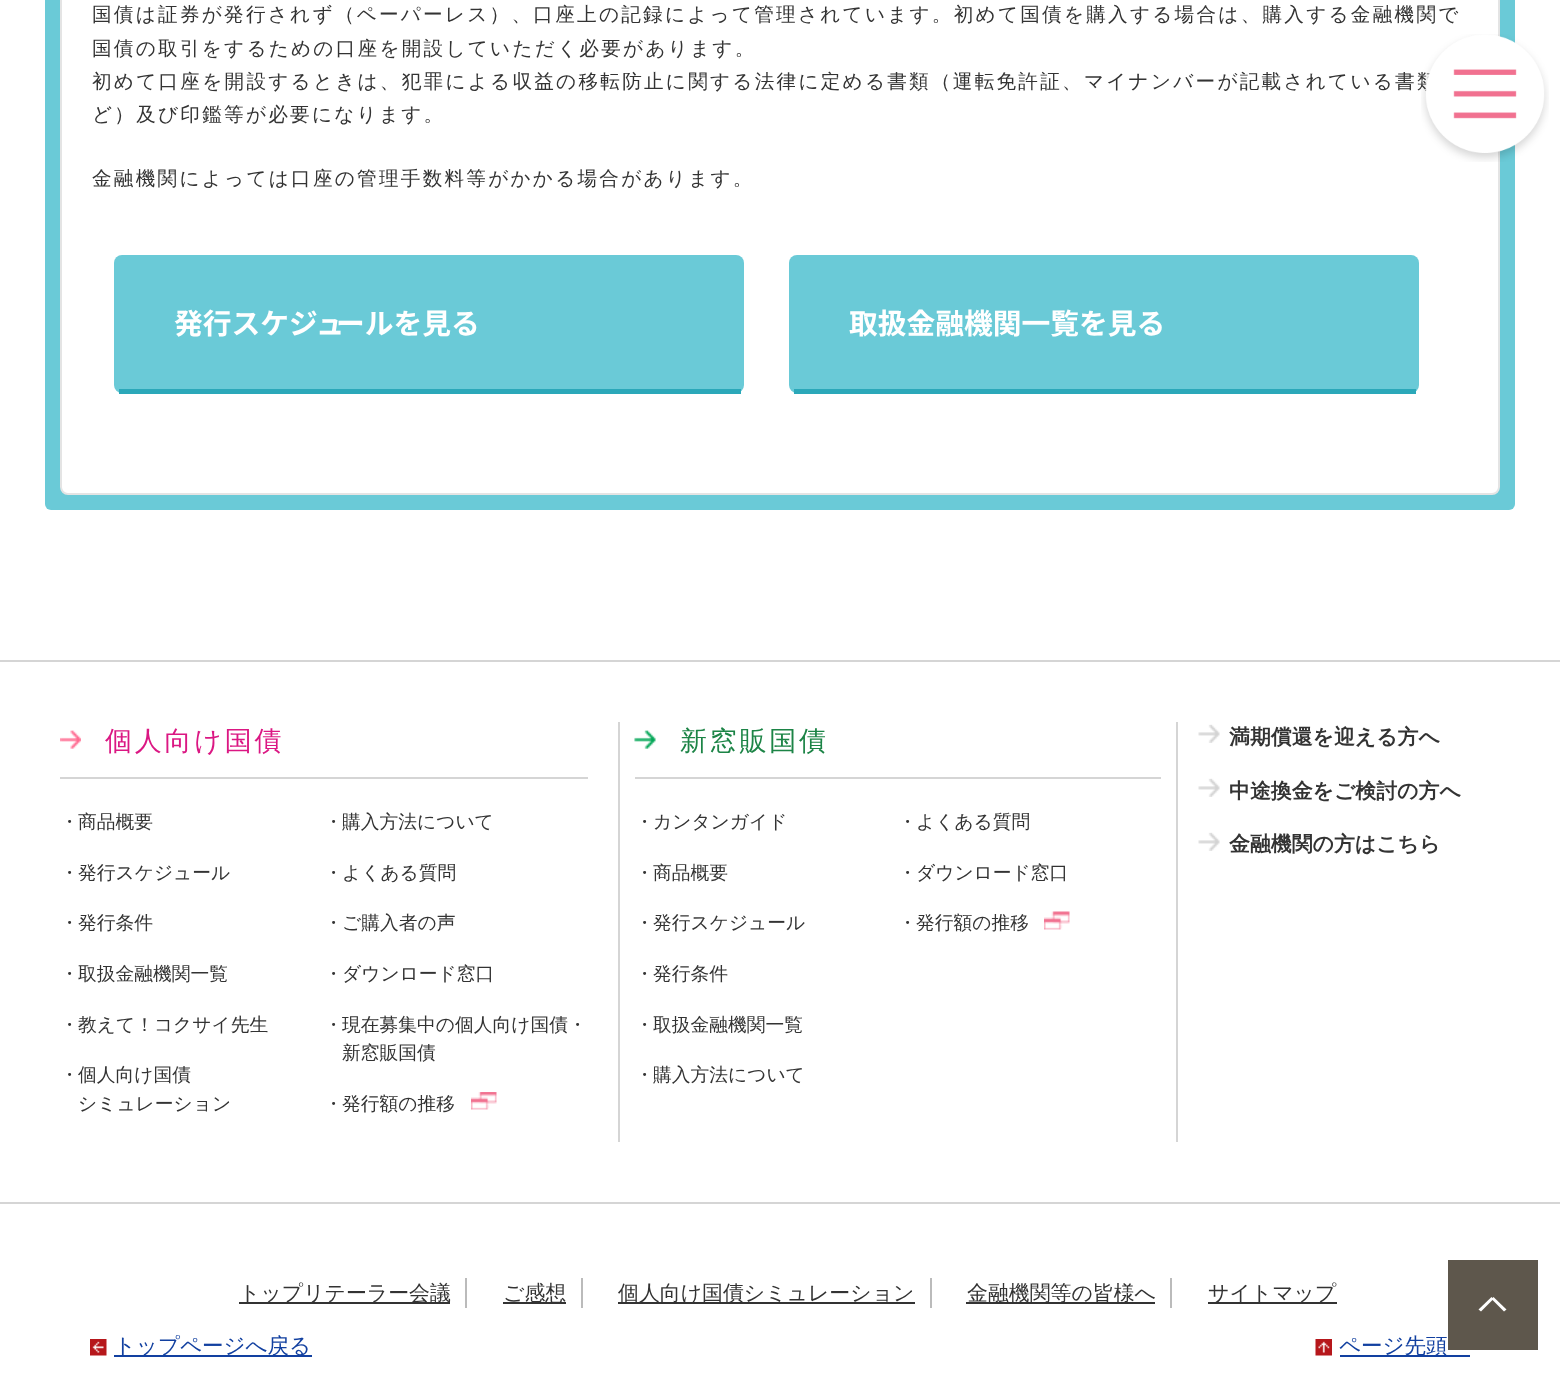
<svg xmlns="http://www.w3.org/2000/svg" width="1560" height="1380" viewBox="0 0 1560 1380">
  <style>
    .t1 { font: 500 19.63px WenQuanYi Zen Hei; letter-spacing: 2.25px; fill: #333; }
    .t2 { font: bold 28.75px Noto Sans JP; fill: #fff; }
    .t3 { font: 500 27px WenQuanYi Zen Hei; letter-spacing: 2.75px; fill: #db1783; }
    .t4 { font: 500 18.75px WenQuanYi Zen Hei; fill: #333; }
    .t5 { font: 500 27px WenQuanYi Zen Hei; letter-spacing: 2.75px; fill: #1c8446; }
    .t6 { font: bold 20.9px WenQuanYi Zen Hei; fill: #333; }
    .t7 { font: 500 20.9px WenQuanYi Zen Hei; fill: #333; }
    .t8 { font: 500 21.5px WenQuanYi Zen Hei; fill: #1240a0; }
  </style>
  <rect width="100%" height="100%" fill="#fff"/>
  <rect x="45" y="-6" width="1470" height="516" rx="6" fill="#6acad7"/>
  <rect x="61" y="-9" width="1438" height="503" rx="7" fill="#fff" stroke="#e4e4e4" stroke-width="2"/>
  <text x="92" y="21" class="t1">国債は証券が発行されず（ペーパーレス）、口座上の記録によって管理されています。初めて国債を購入する場合は、購入する金融機関で</text>
  <text x="92" y="55" class="t1">国債の取引をするための口座を開設していただく必要があります。</text>
  <text x="92" y="88" class="t1">初めて口座を開設するときは、犯罪による収益の移転防止に関する法律に定める書類（運転免許証、マイナンバーが記載されている書類</text>
  <text x="92" y="121" class="t1">ど）及び印鑑等が必要になります。</text>
  <text x="92" y="185" class="t1">金融機関によっては口座の管理手数料等がかかる場合があります。</text>
  <rect x="114" y="255" width="630" height="138" rx="8" fill="#6acad7"/>
  <rect x="119" y="389" width="622" height="5" fill="#2ba8b9"/>
  <text x="174" y="334" class="t2">発行スケジュ</text>
  <text x="336" y="334" class="t2">ールを見る</text>
  <rect x="789" y="255" width="630" height="138" rx="8" fill="#6acad7"/>
  <rect x="794" y="389" width="622" height="5" fill="#2ba8b9"/>
  <text x="849" y="334" class="t2">取扱金融機関一覧を見る</text>
  <image x="1421" y="34" width="128" height="128" href="images/1.png"/>
  <rect x="0" y="660" width="1560" height="2" fill="#d5d5d5"/>
  <rect x="0" y="1202" width="1560" height="2" fill="#d5d5d5"/>
  <image x="60" y="730" width="21" height="19" href="images/2.png"/>
  <text x="105" y="750" class="t3">個人向け国債</text>
  <rect x="60" y="777" width="528" height="2" fill="#d5d5d5"/>
  <text x="60" y="828" class="t4">・</text>
  <text x="78" y="828" class="t4">商品概要</text>
  <text x="60" y="879" class="t4">・</text>
  <text x="78" y="879" class="t4">発行スケジュール</text>
  <text x="60" y="929" class="t4">・</text>
  <text x="78" y="929" class="t4">発行条件</text>
  <text x="60" y="980" class="t4">・</text>
  <text x="78" y="980" class="t4">取扱金融機関一覧</text>
  <text x="60" y="1031" class="t4">・</text>
  <text x="78" y="1031" class="t4">教えて！コクサイ先生</text>
  <text x="60" y="1081" class="t4">・</text>
  <text x="78" y="1081" class="t4">個人向け国債</text>
  <text x="78" y="1110" class="t4">シミュレーション</text>
  <text x="324" y="828" class="t4">・</text>
  <text x="342" y="828" class="t4">購入方法について</text>
  <text x="324" y="879" class="t4">・</text>
  <text x="342" y="879" class="t4">よくある質問</text>
  <text x="324" y="929" class="t4">・</text>
  <text x="342" y="929" class="t4">ご購入者の声</text>
  <text x="324" y="980" class="t4">・</text>
  <text x="342" y="980" class="t4">ダウンロード窓口</text>
  <text x="324" y="1031" class="t4">・</text>
  <text x="342" y="1031" class="t4">現在募集中の個人向け国債・</text>
  <text x="342" y="1059" class="t4">新窓販国債</text>
  <text x="324" y="1110" class="t4">・</text>
  <text x="342" y="1110" class="t4">発行額の推移</text>
  <image x="471" y="1092" width="26" height="18" href="images/3.png"/>
  <rect x="1176" y="722" width="2" height="420" fill="#d5d5d5"/>
  <rect x="618" y="722" width="2" height="420" fill="#d5d5d5"/>
  <image x="634" y="730" width="22" height="19" href="images/4.png"/>
  <text x="680" y="750" class="t5">新窓販国債</text>
  <rect x="635" y="777" width="526" height="2" fill="#d5d5d5"/>
  <text x="635" y="828" class="t4">・</text>
  <text x="653" y="828" class="t4">カンタンガイド</text>
  <text x="635" y="879" class="t4">・</text>
  <text x="653" y="879" class="t4">商品概要</text>
  <text x="635" y="929" class="t4">・</text>
  <text x="653" y="929" class="t4">発行スケジュール</text>
  <text x="635" y="980" class="t4">・</text>
  <text x="653" y="980" class="t4">発行条件</text>
  <text x="635" y="1031" class="t4">・</text>
  <text x="653" y="1031" class="t4">取扱金融機関一覧</text>
  <text x="635" y="1081" class="t4">・</text>
  <text x="653" y="1081" class="t4">購入方法について</text>
  <text x="898" y="828" class="t4">・</text>
  <text x="916" y="828" class="t4">よくある質問</text>
  <text x="898" y="879" class="t4">・</text>
  <text x="916" y="879" class="t4">ダウンロード窓口</text>
  <text x="898" y="929" class="t4">・</text>
  <text x="916" y="929" class="t4">発行額の推移</text>
  <image x="1044" y="911" width="26" height="19" href="images/5.png"/>
  <image x="1198" y="724" width="22" height="19" href="images/6.png"/>
  <text x="1229" y="744" class="t6">満期償還を迎える方へ</text>
  <image x="1198" y="778" width="22" height="19" href="images/6.png"/>
  <text x="1229" y="798" class="t6">中途換金をご検討の方へ</text>
  <image x="1198" y="832" width="22" height="19" href="images/6.png"/>
  <text x="1229" y="851" class="t6">金融機関の方はこちら</text>
  <rect x="239" y="1302" width="211" height="2" fill="#333"/>
  <text x="239" y="1300" class="t7">トップリテーラー会議</text>
  <rect x="465" y="1278" width="2" height="30" fill="#bbb"/>
  <rect x="503" y="1302" width="63" height="2" fill="#333"/>
  <text x="503" y="1300" class="t7">ご感想</text>
  <rect x="581" y="1278" width="2" height="30" fill="#bbb"/>
  <rect x="618" y="1302" width="297" height="2" fill="#333"/>
  <text x="618" y="1300" class="t7">個人向け国債シミュレーション</text>
  <rect x="930" y="1278" width="2" height="30" fill="#bbb"/>
  <rect x="966" y="1302" width="189" height="2" fill="#333"/>
  <text x="967" y="1300" class="t7">金融機関等の皆様へ</text>
  <rect x="1170" y="1278" width="2" height="30" fill="#bbb"/>
  <rect x="1208" y="1302" width="129" height="2" fill="#333"/>
  <text x="1208" y="1300" class="t7">サイトマップ</text>
  <rect x="1448" y="1260" width="90" height="90" fill="#5e574c"/>
  <path d="M1478.5 1309.5L1491.5 1297L1493.5 1299L1481 1311.5Z" fill="#fff"/>
  <path d="M1491.5 1299L1493.5 1297L1506.5 1309.5L1504 1311.5Z" fill="#fff"/>
  <image x="90" y="1339" width="17" height="17" href="images/7.png"/>
  <rect x="114" y="1355" width="198" height="2" fill="#1240a0"/>
  <text x="114" y="1353" class="t8">トップページへ戻る</text>
  <image x="1315" y="1339" width="17" height="17" href="images/8.png"/>
  <rect x="1340" y="1355" width="130" height="2" fill="#1240a0"/>
  <text x="1339" y="1353" class="t8">ページ先頭</text>
</svg>
